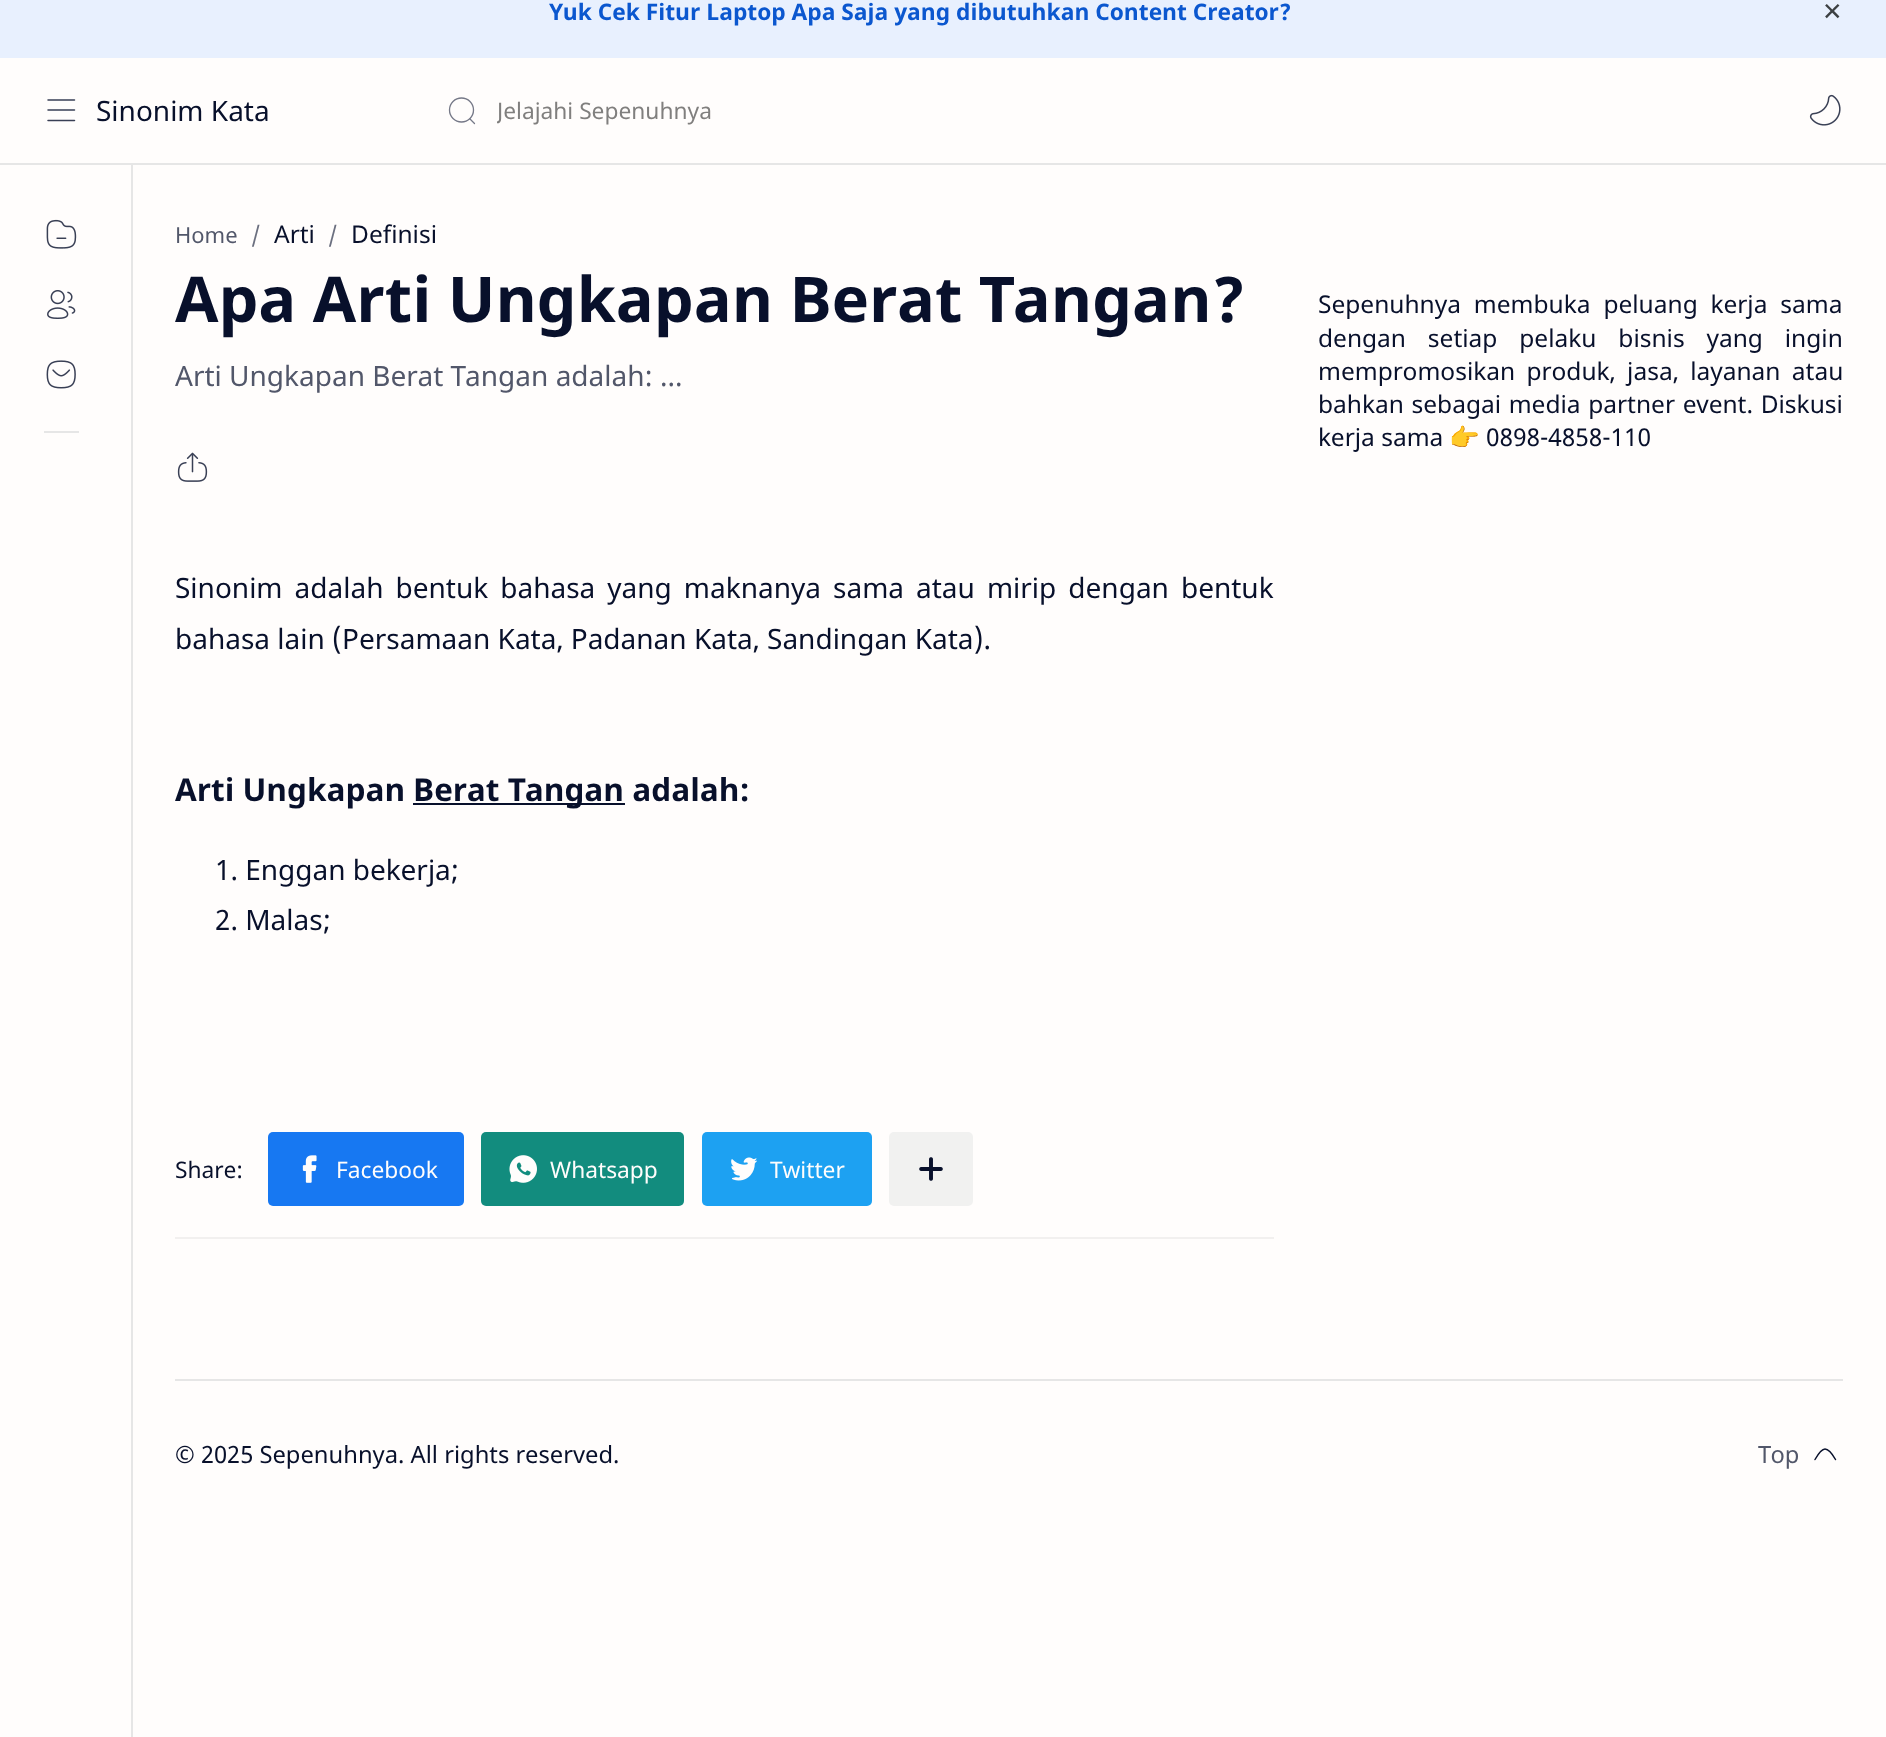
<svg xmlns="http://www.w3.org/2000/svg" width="1886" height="1737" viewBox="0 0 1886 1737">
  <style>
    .t1 { font: bold 22.75px Noto Sans; fill: #0b57cf; }
    .t2 { font: 24.5px DejaVu Sans; fill: #3c4043; }
    .t3 { font: 28px Noto Sans; fill: #08102b; }
    .t4 { font: 22.75px Noto Sans; fill: #807f7e; }
    .t5 { font: 22px Noto Sans; fill: #52576a; }
    .t6 { font: 22px Noto Sans; fill: #6b6f7f; }
    .t7 { font: 24.5px Noto Sans; fill: #08102b; }
    .t8 { font: bold 63px Noto Sans; fill: #08102b; }
    .t9 { font: 28px Noto Sans; fill: #52576a; }
    .t10 { font: bold 31.5px Noto Sans; fill: #08102b; }
    .t11 { font: 22.75px Noto Sans; fill: #08102b; }
    .t12 { font: 22.75px Noto Sans; fill: #fffdfc; }
    .t13 { font: 24.5px Noto Color Emoji; fill: #08102b; }
    .t14 { font: 23.75px Noto Sans; fill: #08102b; }
    .t15 { font: 23.75px Noto Sans; fill: #52576a; }
  </style>
  <defs>
    <clipPath id="clip1"><rect x="497" y="95" width="459" height="31"/></clipPath>
  </defs>
  <rect width="100%" height="100%" fill="#fffdfc"/>
  <rect x="0" y="0" width="1886" height="58" fill="#e8f0fe"/>
  <text x="549" y="20" class="t1">Yuk Cek Fitur Laptop Apa Saja yang dibutuhkan Content Creator?</text>
  <text x="1822" y="20" class="t2">✕</text>
  <rect x="0" y="163" width="1886" height="2" fill="#e6e6e6"/>
  <path d="M48 110H74.5M48 100H74.5M48 120.5H74.5" fill="none" stroke="#393f55" stroke-width="1.5" stroke-linecap="round" stroke-linejoin="round"/>
  <text x="96" y="121" class="t3">Sinonim Kata</text>
  <circle cx="461.5" cy="110" r="12" fill="none" stroke="#757887" stroke-width="1.3"/>
  <path d="M470 119L474.5 123.5" fill="none" stroke="#757887" stroke-width="1.3" stroke-linecap="round" stroke-linejoin="round"/>
  <g clip-path="url(#clip1)">
    <text x="497" y="119" class="t4">Jelajahi Sepenuhnya</text>
  </g>
  <image x="1809" y="94" width="32" height="32" href="images/1.png"/>
  <image x="46" y="219" width="31" height="30" href="images/2.png"/>
  <image x="47" y="290" width="29" height="29" href="images/3.png"/>
  <image x="46" y="360" width="30" height="29" href="images/4.png"/>
  <rect x="44" y="431" width="35" height="2" fill="#e6e6e6"/>
  <rect x="131" y="165" width="2" height="1572" fill="#e6e6e6"/>
  <text x="175" y="243" class="t5">Home</text>
  <text x="251" y="243" class="t6">/</text>
  <text x="274" y="243" class="t7">Arti</text>
  <text x="328" y="243" class="t6">/</text>
  <text x="351" y="243" class="t7">Definisi</text>
  <text x="175" y="322" class="t8">Apa Arti Ungkapan Berat Tangan?</text>
  <text x="175" y="386" class="t9">Arti Ungkapan Berat Tangan adalah: ...</text>
  <image x="177" y="452" width="31" height="30" href="images/5.png"/>
  <text x="175" y="598" word-spacing="4.75" class="t3">Sinonim adalah bentuk bahasa yang maknanya sama atau mirip dengan bentuk</text>
  <text x="175" y="649" class="t3">bahasa lain (Persamaan Kata, Padanan Kata, Sandingan Kata).</text>
  <text x="175" y="801" class="t10">Arti Ungkapan</text>
  <rect x="413" y="803" width="212" height="2" fill="#08102b"/>
  <text x="413" y="801" class="t10">Berat Tangan adalah:</text>
  <text x="215" y="880" class="t3">1. Enggan bekerja;</text>
  <text x="215" y="930" class="t3">2. Malas;</text>
  <rect x="175" y="1237" width="1099" height="2" fill="#f2f0ef"/>
  <text x="175" y="1178" class="t11">Share:</text>
  <rect x="268" y="1132" width="196" height="74" rx="5" fill="#1778f2"/>
  <image x="302" y="1155" width="15" height="28" href="images/6.png"/>
  <text x="336" y="1178" class="t12">Facebook</text>
  <rect x="481" y="1132" width="203" height="74" rx="5" fill="#128c7e"/>
  <image x="509" y="1155" width="28" height="28" href="images/7.png"/>
  <text x="550" y="1178" class="t12">Whatsapp</text>
  <rect x="702" y="1132" width="170" height="74" rx="5" fill="#1da1f2"/>
  <image x="731" y="1157" width="26" height="24" href="images/8.png"/>
  <text x="770" y="1178" class="t12">Twitter</text>
  <rect x="889" y="1132" width="84" height="74" rx="5" fill="#f1f1f0"/>
  <image x="919" y="1157" width="24" height="24" href="images/9.png"/>
  <text x="1318" y="313" word-spacing="6.5" class="t7">Sepenuhnya membuka peluang kerja sama</text>
  <text x="1318" y="347" word-spacing="15.5" class="t7">dengan setiap pelaku bisnis yang ingin</text>
  <text x="1318" y="380" word-spacing="5" class="t7">mempromosikan produk, jasa, layanan atau</text>
  <text x="1318" y="413" word-spacing="1.25" class="t7">bahkan sebagai media partner event. Diskusi</text>
  <text x="1318" y="446" class="t7">kerja sama</text>
  <text x="1449" y="446" class="t13">👉</text>
  <text x="1486" y="446" class="t7">0898-4858-110</text>
  <rect x="175" y="1379" width="1668" height="2" fill="#e6e6e6"/>
  <text x="175" y="1463" class="t14">© 2025 Sepenuhnya. All rights reserved.</text>
  <text x="1758" y="1463" class="t15">Top</text>
  <path d="M1815 1459.5C1815 1459.5 1821 1449 1825 1449C1829.5 1449 1835.5 1459.5 1835.5 1459.5" fill="none" stroke="#08102b" stroke-width="1.5" stroke-linecap="round" stroke-linejoin="round"/>
</svg>
